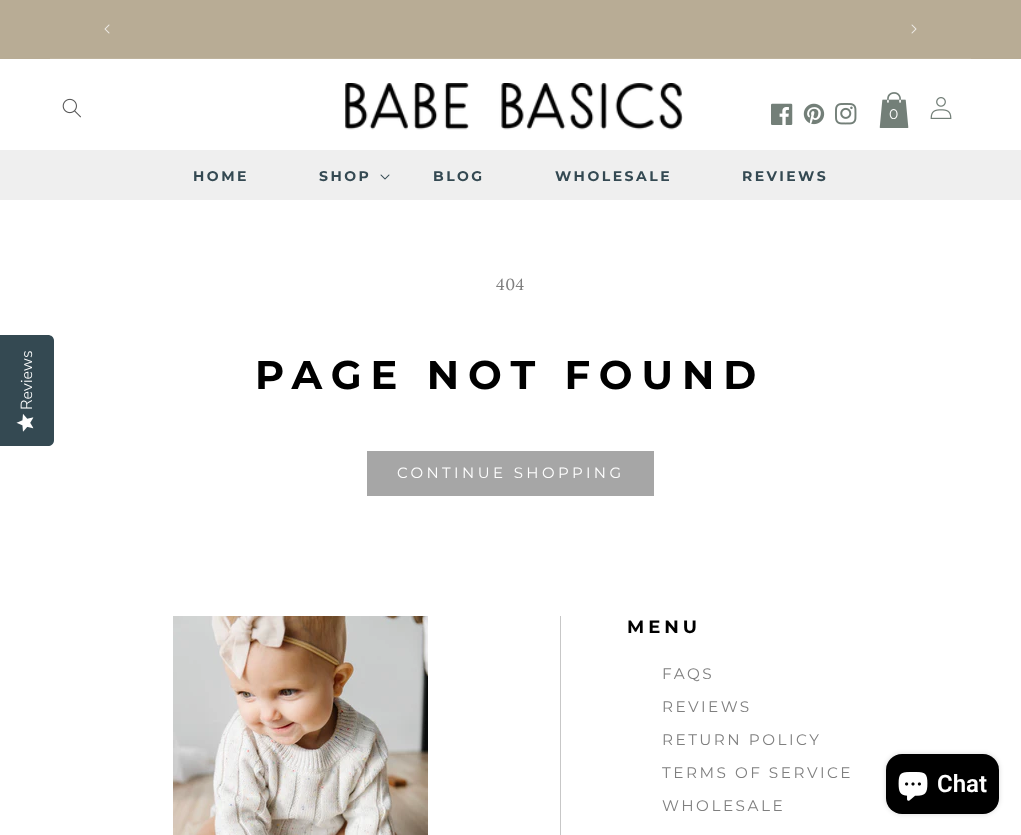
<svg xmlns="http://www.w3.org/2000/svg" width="1021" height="835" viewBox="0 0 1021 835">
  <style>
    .t1 { font: 14px Montserrat; fill: #fff; }
    .t2 { font: bold 14px Montserrat; letter-spacing: 2.5px; fill: #344952; }
    .t3 { font: 300 16px Nunito Sans; fill: #fff; }
    .t4 { font: 16px Lora; letter-spacing: 0.5px; fill: #7f7f7f; }
    .t5 { font: bold 40px Montserrat; letter-spacing: 9px; fill: #000; }
    .t6 { font: 15px Montserrat; letter-spacing: 3.4px; fill: #fff; }
    .t7 { font: bold 18px Montserrat; letter-spacing: 4px; fill: #000; }
    .t8 { font: 15.25px Montserrat; letter-spacing: 2.5px; fill: #7f7f7f; }
    .t9 { font: 600 24px Roboto; fill: #fff; }
  </style>
  <rect width="100%" height="100%" fill="#fff"/>
  <rect x="0" y="0" width="1021" height="59" fill="#b8ac95"/>
  <rect x="50" y="58" width="921" height="1" fill="#beb39d"/>
  <image x="104" y="24" width="6" height="10" href="images/1.png"/>
  <image x="911" y="24" width="6" height="10" href="images/2.png"/>
  <image x="62" y="98" width="19" height="20" href="images/3.png"/>
  <image x="345" y="83" width="338" height="47" href="images/4.png"/>
  <image x="771" y="103" width="22" height="22" href="images/5.png"/>
  <image x="803" y="103" width="22" height="22" href="images/6.png"/>
  <image x="835" y="103" width="22" height="22" href="images/7.png"/>
  <image x="879" y="92" width="30" height="36" href="images/8.png"/>
  <text x="889" y="119" class="t1">0</text>
  <image x="930" y="97" width="22" height="22" href="images/9.png"/>
  <rect x="0" y="150" width="1021" height="50" fill="#efefef"/>
  <text x="193" y="181" class="t2">HOME</text>
  <text x="319" y="181" class="t2">SHOP</text>
  <image x="380" y="174" width="10" height="6" href="images/10.png"/>
  <text x="433" y="181" class="t2">BLOG</text>
  <text x="555" y="181" class="t2">WHOLESALE</text>
  <text x="742" y="181" class="t2">REVIEWS</text>
  <path d="M0 446V335H48C51 335 54 337 54 341V440C54 444 51 446 48 446Z" fill="#344952"/>
  <text x="32" y="410" transform="rotate(-90 32 410)" class="t3">Reviews</text>
  <image x="16" y="414" width="18" height="18" href="images/11.png"/>
  <text x="496" y="290" class="t4">404</text>
  <text x="255" y="389" class="t5">PAGE NOT FOUND</text>
  <rect x="367" y="451" width="287" height="45" fill="#a6a6a6"/>
  <text x="397" y="478" class="t6">CONTINUE SHOPPING</text>
  <rect x="560" y="616" width="1" height="219" fill="#c7c7c7"/>
  <image x="173" y="616" width="255" height="219" href="images/12.png"/>
  <text x="627" y="633" class="t7">MENU</text>
  <text x="662" y="679" class="t8">FAQS</text>
  <text x="662" y="712" class="t8">REVIEWS</text>
  <text x="662" y="745" class="t8">RETURN POLICY</text>
  <text x="662" y="778" class="t8">TERMS OF SERVICE</text>
  <text x="662" y="811" class="t8">WHOLESALE</text>
  <rect x="886" y="754" width="113" height="60" rx="16" fill="#00000026" filter="blur(2.5px)"/>
  <rect x="886" y="754" width="113" height="60" rx="16" fill="#000"/>
  <image x="898" y="772" width="30" height="29" href="images/13.png"/>
  <text x="937" y="792" class="t9">Chat</text>
</svg>
